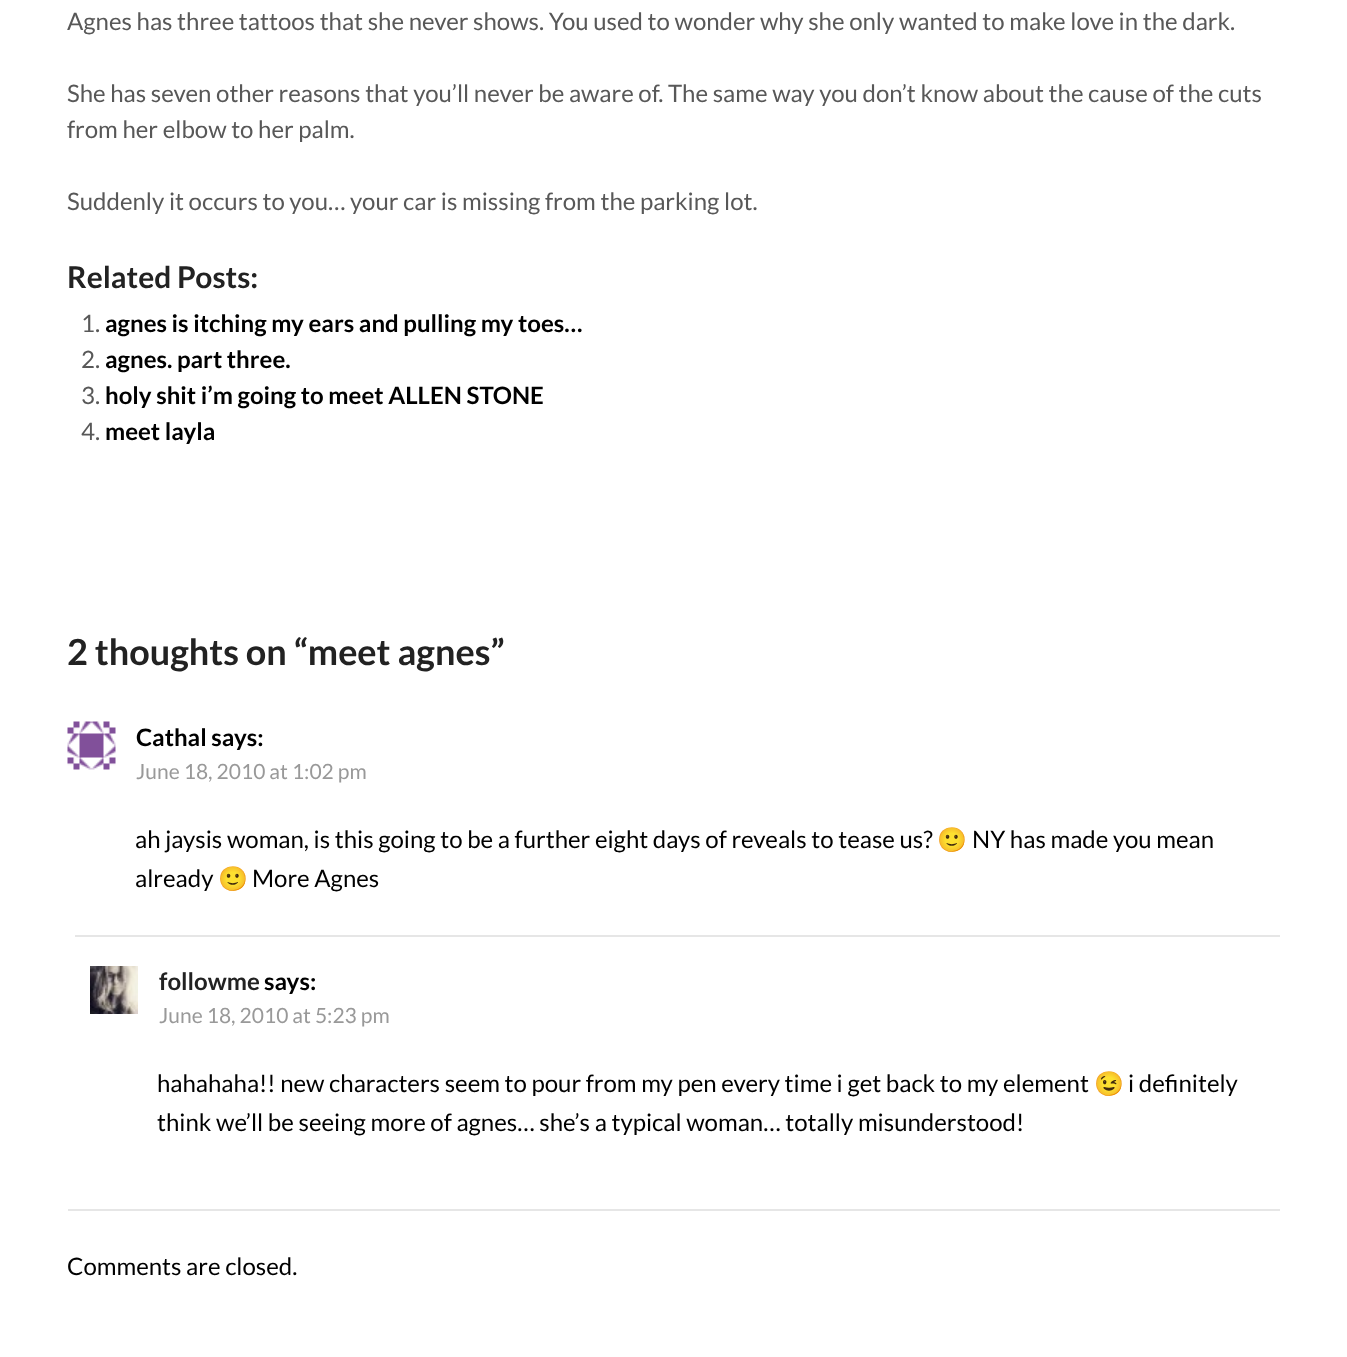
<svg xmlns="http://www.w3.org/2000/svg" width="1347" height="1357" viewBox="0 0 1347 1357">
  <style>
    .t1 { font: 24px Lato; fill: #585858; }
    .t2 { font: bold 30px Lato; fill: #222; }
    .t3 { font: bold 24px Lato; fill: #000; }
    .t4 { font: bold 36px Lato; fill: #222; }
    .t5 { font: 21px Lato; fill: #999; }
    .t6 { font: 24px Lato; fill: #000; }
    .t7 { font: 24px Noto Color Emoji; fill: #000; }
    .t8 { font: bold 24px Lato; fill: #222; }
  </style>
  <rect width="100%" height="100%" fill="#fff"/>
  <text x="67" y="30" class="t1">Agnes has three tattoos that she never shows. You used to wonder why she only wanted to make love in the dark.</text>
  <text x="67" y="102" class="t1">She has seven other reasons that you’ll never be aware of. The same way you don’t know about the cause of the cuts</text>
  <text x="67" y="138" class="t1">from her elbow to her palm.</text>
  <text x="67" y="210" class="t1">Suddenly it occurs to you… your car is missing from the parking lot.</text>
  <text x="67" y="288" class="t2">Related Posts:</text>
  <text x="81" y="332" class="t1">1.</text>
  <text x="105" y="332" class="t3">agnes is itching my ears and pulling my toes…</text>
  <text x="81" y="368" class="t1">2.</text>
  <text x="105" y="368" class="t3">agnes. part three.</text>
  <text x="81" y="404" class="t1">3.</text>
  <text x="105" y="404" class="t3">holy shit i’m going to meet ALLEN STONE</text>
  <text x="81" y="440" class="t1">4.</text>
  <text x="105" y="440" class="t3">meet layla</text>
  <text x="67" y="665" class="t4">2 thoughts on “meet agnes”</text>
  <rect x="68" y="1209" width="1212" height="2" fill="#e6e6e6"/>
  <image x="67" y="721" width="49" height="49" href="images/1.png"/>
  <text x="136" y="746" class="t3">Cathal says:</text>
  <text x="136" y="779" class="t5">June 18, 2010 at 1:02 pm</text>
  <text x="135" y="848" class="t6">ah jaysis woman, is this going to be a further eight days of reveals to tease us?</text>
  <text x="937" y="848" class="t7">🙂</text>
  <text x="972" y="848" class="t6">NY has made you mean</text>
  <text x="135" y="887" class="t6">already</text>
  <text x="218" y="887" class="t7">🙂</text>
  <text x="252" y="887" class="t6">More Agnes</text>
  <rect x="75" y="935" width="1205" height="2" fill="#e6e6e6"/>
  <image x="90" y="966" width="48" height="48" href="images/2.png"/>
  <text x="159" y="990" class="t8">followme</text>
  <text x="264" y="990" class="t3">says:</text>
  <text x="159" y="1023" class="t5">June 18, 2010 at 5:23 pm</text>
  <text x="157" y="1092" class="t6">hahahaha!! new characters seem to pour from my pen every time i get back to my element</text>
  <text x="1094" y="1092" class="t7">😉</text>
  <text x="1128" y="1092" class="t6">i definitely</text>
  <text x="157" y="1131" class="t6">think we’ll be seeing more of agnes… she’s a typical woman… totally misunderstood!</text>
  <text x="67" y="1275" class="t6">Comments are closed.</text>
</svg>
